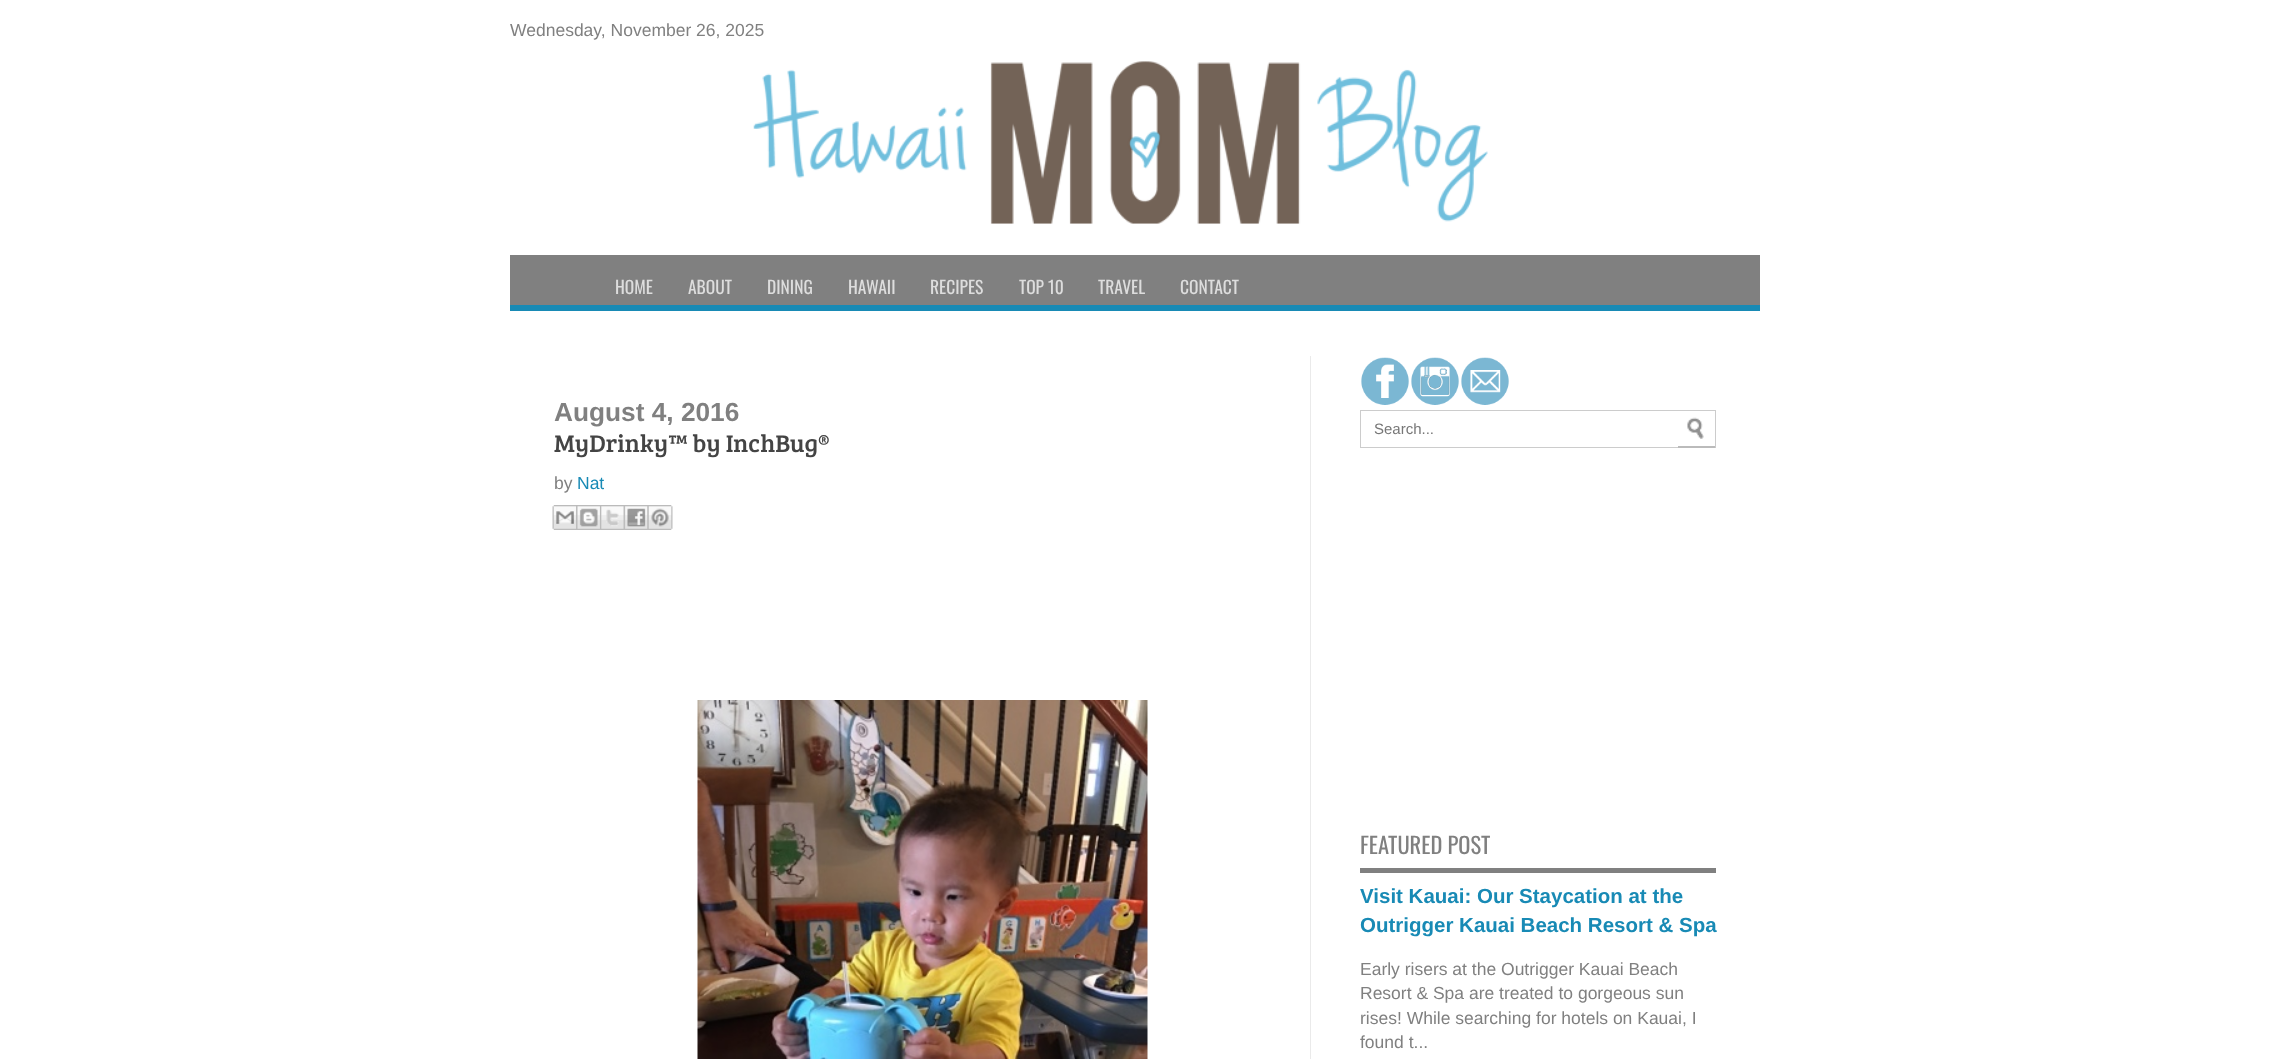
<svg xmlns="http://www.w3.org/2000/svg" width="2269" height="1059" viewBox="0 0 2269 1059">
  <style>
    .t1 { font: 17.5px Liberation Sans; fill: #808080; }
    .t2 { font: 17.5px Oswald; fill: #ddd; }
    .t3 { font: bold 26.25px Liberation Sans; fill: #808080; }
    .t4 { font: 25px Bree Serif; fill: #444; }
    .t5 { font: 17.5px Liberation Sans; fill: #188ab5; }
    .t6 { font: 15px Liberation Sans; fill: #777; }
    .t7 { font: 22.5px Oswald; fill: #808080; }
    .t8 { font: bold 20.5px Liberation Sans; fill: #188ab5; }
  </style>
  <rect width="100%" height="100%" fill="#fff"/>
  <text x="510" y="36" class="t1">Wednesday, November 26, 2025</text>
  <image x="753" y="61" width="735" height="163" href="images/1.png"/>
  <rect x="510" y="255" width="1250" height="50" fill="#808080"/>
  <rect x="510" y="305" width="1250" height="6" fill="#188ab5"/>
  <text x="615" y="294" class="t2">HOME</text>
  <text x="688" y="294" class="t2">ABOUT</text>
  <text x="767" y="294" class="t2">DINING</text>
  <text x="848" y="294" class="t2">HAWAII</text>
  <text x="930" y="294" class="t2">RECIPES</text>
  <text x="1019" y="294" class="t2">TOP 10</text>
  <text x="1098" y="294" class="t2">TRAVEL</text>
  <text x="1180" y="294" class="t2">CONTACT</text>
  <rect x="1310" y="356" width="1" height="703" fill="#eaeaea"/>
  <text x="554" y="421" class="t3">August 4, 2016</text>
  <text x="554" y="452" class="t4">MyDrinky™ by InchBug®</text>
  <text x="554" y="489" class="t1">by</text>
  <text x="577" y="489" class="t5">Nat</text>
  <image x="552" y="505" width="25" height="25" href="images/2.png"/>
  <image x="576" y="505" width="24" height="25" href="images/3.png"/>
  <image x="600" y="505" width="24" height="25" href="images/4.png"/>
  <image x="623" y="505" width="25" height="25" href="images/5.png"/>
  <image x="647" y="505" width="26" height="25" href="images/6.png"/>
  <image x="697" y="700" width="451" height="359" href="images/7.png"/>
  <image x="1361" y="357" width="48" height="48" href="images/8.png"/>
  <image x="1411" y="357" width="48" height="48" href="images/9.png"/>
  <image x="1461" y="357" width="48" height="48" href="images/10.png"/>
  <rect x="1360.5" y="410.5" width="355" height="37" fill="none" stroke="#ccc"/>
  <text x="1374" y="434" class="t6">Search...</text>
  <rect x="1678" y="446" width="37" height="2" fill="#bbb"/>
  <image x="1687" y="417" width="17" height="22" href="images/11.png"/>
  <rect x="1360" y="868" width="356" height="5" fill="#808080"/>
  <text x="1360" y="854" class="t7">FEATURED POST</text>
  <text x="1360" y="903" class="t8">Visit Kauai: Our Staycation at the</text>
  <text x="1360" y="932" class="t8">Outrigger Kauai Beach Resort &amp; Spa</text>
  <text x="1360" y="975" class="t1">Early risers at the Outrigger Kauai Beach</text>
  <text x="1360" y="999" class="t1">Resort &amp; Spa are treated to gorgeous sun</text>
  <text x="1360" y="1024" class="t1">rises! While searching for hotels on Kauai, I</text>
  <text x="1360" y="1048" class="t1">found t...</text>
</svg>
